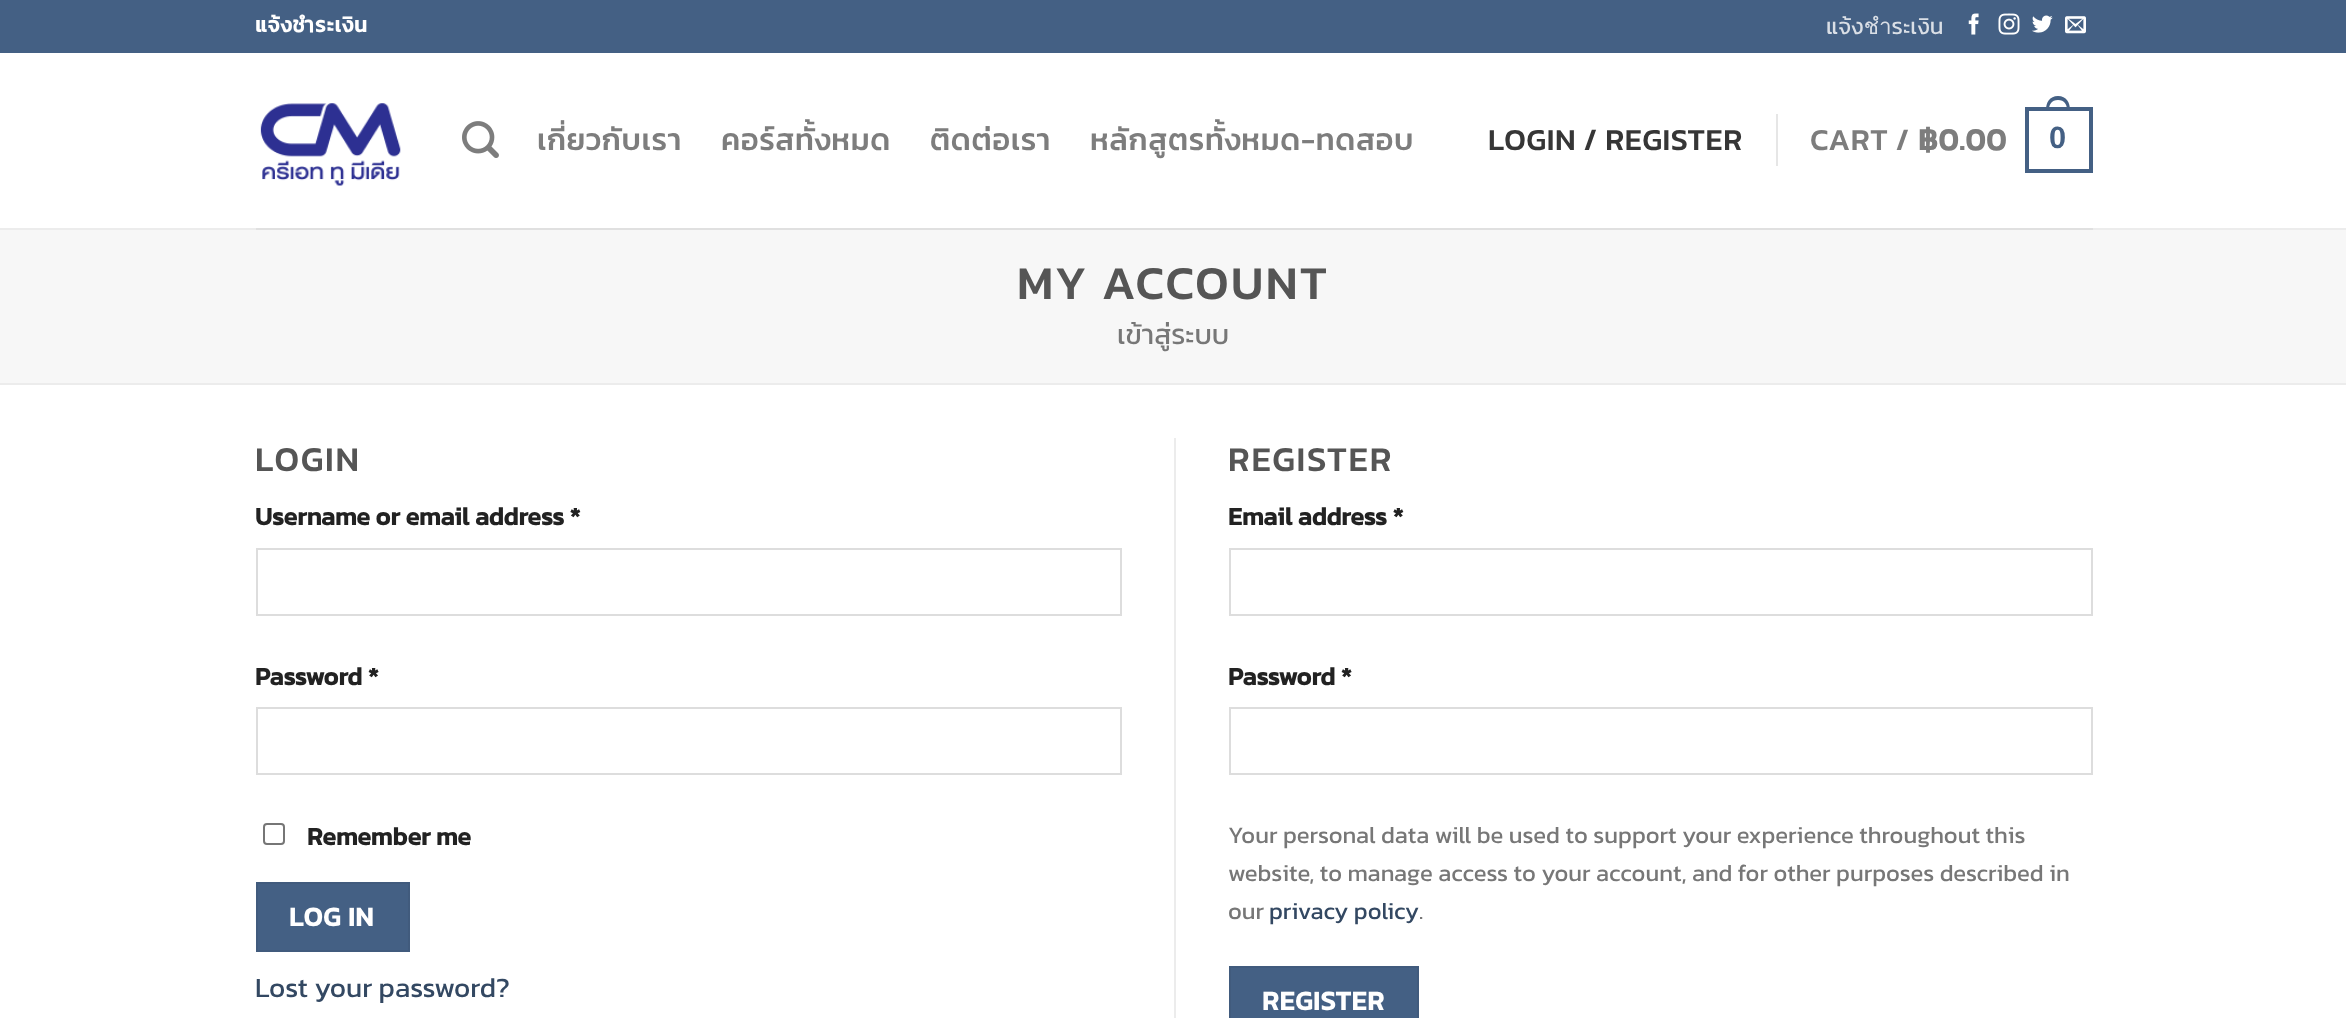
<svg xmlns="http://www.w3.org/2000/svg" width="2346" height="1018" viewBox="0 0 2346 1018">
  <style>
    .t1 { font: bold 21px Kanit; letter-spacing: 1px; fill: #fff; }
    .t2 { font: 22.5px Kanit; fill: #dadfe6; }
    .t3 { font: 500 30.75px Kanit; letter-spacing: 0.6px; fill: #7d7d7d; }
    .t4 { font: 500 30.75px Kanit; letter-spacing: 0.6px; fill: #363636; }
    .t5 { font: bold 30.75px Kanit; letter-spacing: 0.6px; fill: #7d7d7d; }
    .t6 { font: bold 30.75px Liberation Sans; letter-spacing: 0.6px; fill: #446084; }
    .t7 { font: 500 47.5px Kanit; letter-spacing: 2.4px; fill: #555; }
    .t8 { font: 28px Kanit; fill: #777; }
    .t9 { font: 500 35px Kanit; letter-spacing: 1.75px; fill: #555; }
    .t10 { font: bold 25.25px Kanit; fill: #222; }
    .t11 { font: bold 27px Kanit; letter-spacing: 0.75px; fill: #fff; }
    .t12 { font: 28px Kanit; fill: #334862; }
    .t13 { font: 23.8px Kanit; fill: #777; }
    .t14 { font: 23.8px Kanit; fill: #334862; }
  </style>
  <rect width="100%" height="100%" fill="#fff"/>
  <rect x="0" y="0" width="2346" height="53" fill="#446084"/>
  <text x="255" y="32" class="t1">แจ้งชำระเงิน</text>
  <text x="1826" y="34" class="t2">แจ้งชำระเงิน</text>
  <image x="1968" y="13" width="11" height="22" href="images/1.png"/>
  <image x="1998" y="13" width="22" height="22" href="images/2.png"/>
  <image x="2032" y="15" width="21" height="18" href="images/3.png"/>
  <image x="2065" y="16" width="21" height="18" href="images/4.png"/>
  <image x="260" y="103" width="141" height="83" href="images/5.png"/>
  <image x="462" y="121" width="37" height="37" href="images/6.png"/>
  <text x="537" y="150" class="t3">เกี่ยวกับเรา</text>
  <text x="721" y="150" class="t3">คอร์สทั้งหมด</text>
  <text x="930" y="150" class="t3">ติดต่อเรา</text>
  <text x="1090" y="150" class="t3">หลักสูตรทั้งหมด-ทดสอบ</text>
  <text x="1488" y="150" class="t4">LOGIN / REGISTER</text>
  <rect x="1776" y="114" width="2" height="52" fill="#e6e6e6"/>
  <text x="1810" y="150" class="t3">CART /</text>
  <text x="1918" y="150" class="t5">฿0.00</text>
  <rect x="2027" y="109" width="64" height="62" fill="none" stroke="#446084" stroke-width="4"/>
  <path d="M2058 96C2066.5 96 2070 102.5 2070 110H2046C2046 102.5 2049.5 96 2058 96ZM2058 100C2064.5 100 2067 104.5 2067 110H2049C2049 104.5 2051.5 100 2058 100Z" fill="#446084" fill-rule="evenodd"/>
  <text x="2049" y="148" class="t6">0</text>
  <rect x="0" y="228" width="2346" height="2" fill="#ececec"/>
  <rect x="256" y="228" width="1837" height="2" fill="#e0e0e0"/>
  <rect x="0" y="230" width="2346" height="153" fill="#f7f7f7"/>
  <rect x="0" y="383" width="2346" height="2" fill="#ececec"/>
  <text x="1017" y="299" class="t7">MY ACCOUNT</text>
  <text x="1117" y="344" class="t8">เข้าสู่ระบบ</text>
  <text x="255" y="471" class="t9">LOGIN</text>
  <text x="255" y="525" class="t10">Username or email address *</text>
  <rect x="257" y="549" width="864" height="66" fill="none" stroke="#ddd" stroke-width="2"/>
  <text x="255" y="685" class="t10">Password *</text>
  <rect x="257" y="708" width="864" height="66" fill="none" stroke="#ddd" stroke-width="2"/>
  <rect x="264" y="824" width="20" height="20" rx="3" fill="none" stroke="#767676" stroke-width="2"/>
  <text x="307" y="845" class="t10">Remember me</text>
  <rect x="257" y="883" width="152" height="68" fill="#446084" stroke="#415b7d" stroke-width="2"/>
  <text x="289" y="926" class="t11">LOG IN</text>
  <text x="255" y="997" class="t12">Lost your password?</text>
  <rect x="1174" y="438" width="2" height="580" fill="#ececec"/>
  <text x="1228" y="471" class="t9">REGISTER</text>
  <text x="1228" y="525" class="t10">Email address *</text>
  <rect x="1230" y="549" width="862" height="66" fill="none" stroke="#ddd" stroke-width="2"/>
  <text x="1228" y="685" class="t10">Password *</text>
  <rect x="1230" y="708" width="862" height="66" fill="none" stroke="#ddd" stroke-width="2"/>
  <text x="1228" y="843" class="t13">Your personal data will be used to support your experience throughout this</text>
  <text x="1228" y="881" class="t13">website, to manage access to your account, and for other purposes described in</text>
  <text x="1228" y="919" class="t13">our</text>
  <text x="1269" y="919" class="t14">privacy policy</text>
  <text x="1419" y="919" class="t13">.</text>
  <rect x="1230" y="967" width="188" height="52" fill="#446084" stroke="#415b7d" stroke-width="2"/>
  <text x="1262" y="1010" class="t11">REGISTER</text>
</svg>
